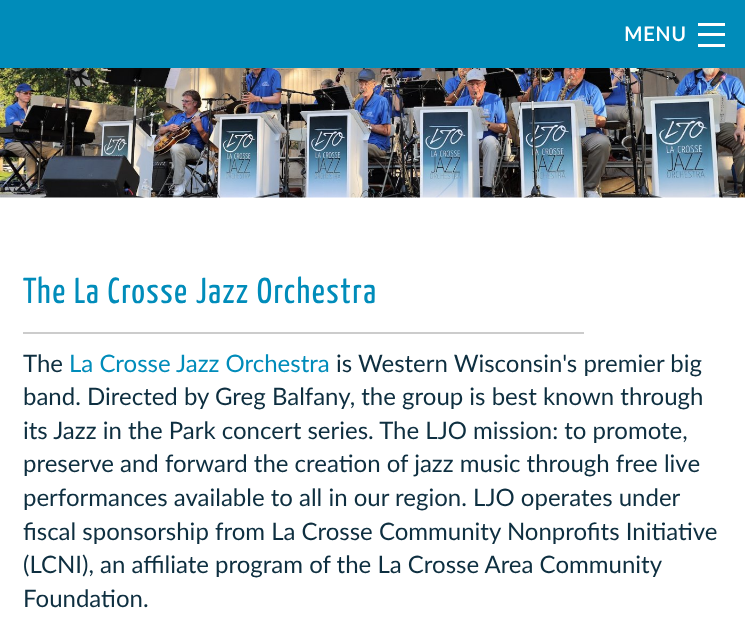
<svg xmlns="http://www.w3.org/2000/svg" width="745" height="624" viewBox="0 0 745 624">
  <style>
    .t1 { font: bold 19.5px Lato; letter-spacing: 1px; fill: #fff; }
    .t2 { font: 36px Yanone Kaffeesatz; letter-spacing: 1.5px; fill: #008cba; }
    .t3 { font: 24px Lato; fill: #0e2f40; }
    .t4 { font: 24px Lato; fill: #008cba; }
  </style>
  <rect width="100%" height="100%" fill="#fff"/>
  <rect x="0" y="0" width="745" height="68" fill="#008cba"/>
  <text x="624" y="41" class="t1">MENU</text>
  <rect x="698" y="44" width="27" height="3" fill="#fff"/>
  <rect x="698" y="33" width="27" height="3" fill="#fff"/>
  <rect x="698" y="23" width="27" height="3" fill="#fff"/>
  <image x="0" y="68" width="745" height="130" href="images/1.png"/>
  <text x="23" y="303" class="t2">The La Crosse Jazz Orchestra</text>
  <rect x="23" y="332" width="561" height="2" fill="#ccc"/>
  <text x="23" y="372" class="t3">The</text>
  <text x="69" y="372" class="t4">La Crosse Jazz Orchestra</text>
  <text x="336" y="372" class="t3">is Western Wisconsin's premier big</text>
  <text x="23" y="405" class="t3">band. Directed by Greg Balfany, the group is best known through</text>
  <text x="23" y="439" class="t3">its Jazz in the Park concert series. The LJO mission: to promote,</text>
  <text x="23" y="472" class="t3">preserve and forward the creation of jazz music through free live</text>
  <text x="23" y="506" class="t3">performances available to all in our region. LJO operates under</text>
  <text x="23" y="540" class="t3">fiscal sponsorship from La Crosse Community Nonprofits Initiative</text>
  <text x="23" y="573" class="t3">(LCNI), an affiliate program of the La Crosse Area Community</text>
  <text x="23" y="607" class="t3">Foundation.</text>
</svg>
